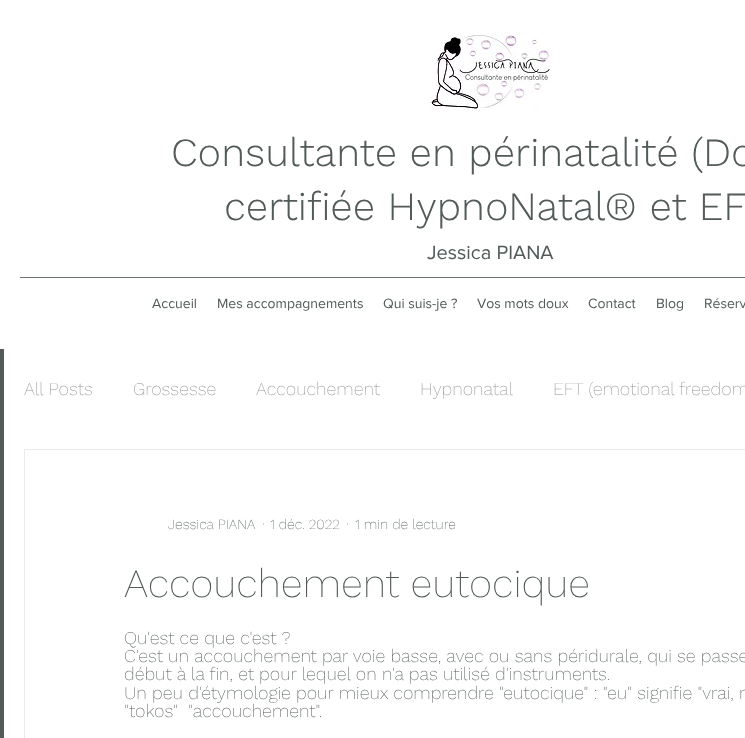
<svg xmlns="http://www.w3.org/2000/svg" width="745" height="738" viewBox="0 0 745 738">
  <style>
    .t1 { font: 300 40px Work Sans; fill: #525a5a; }
    .t2 { font: 20px 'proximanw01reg'; fill: #525a5a; }
    .t3 { font: 14px 'proximanw01reg'; fill: #525a5a; }
    .t4 { font: 200 18px Work Sans; fill: #939393; }
    .t5 { font: 200 14px Work Sans; fill: #525a5a; }
    .t6 { font: 200 40px Work Sans; fill: #525a5a; }
    .t7 { font: 200 18px Work Sans; fill: #525a5a; }
  </style>
  <rect width="100%" height="100%" fill="#525a5a"/>
  <rect x="0" y="0" width="745" height="349" fill="#fff"/>
  <image x="429" y="31" width="123" height="80" href="images/1.png"/>
  <text x="171" y="166" class="t1">Consultante en périnatalité (Do</text>
  <text x="224" y="220" class="t1">certifiée HypnoNatal® et EF</text>
  <text x="427" y="259" class="t2">Jessica PIANA</text>
  <rect x="20" y="277" width="725" height="1" fill="#6c7373"/>
  <text x="152" y="308" class="t3">Accueil</text>
  <text x="217" y="308" class="t3">Mes accompagnements</text>
  <text x="383" y="308" class="t3">Qui suis-je ?</text>
  <text x="477" y="308" class="t3">Vos mots doux</text>
  <text x="588" y="308" class="t3">Contact</text>
  <text x="656" y="308" class="t3">Blog</text>
  <text x="704" y="308" class="t3">Réserv</text>
  <rect x="4" y="349" width="741" height="389" fill="#fff"/>
  <text x="24" y="395" class="t4">All Posts</text>
  <text x="133" y="395" class="t4">Grossesse</text>
  <text x="256" y="395" class="t4">Accouchement</text>
  <text x="420" y="395" class="t4">Hypnonatal</text>
  <text x="553" y="395" class="t4">EFT (emotional freedom</text>
  <rect x="24.5" y="449.5" width="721" height="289" fill="none" stroke="#ebebeb"/>
  <text x="168" y="529" class="t5">Jessica PIANA</text>
  <text x="262" y="529" class="t5">·</text>
  <text x="270" y="529" class="t5">1 déc. 2022</text>
  <text x="346" y="529" class="t5">·</text>
  <text x="355" y="529" class="t5">1 min de lecture</text>
  <text x="124" y="597" class="t6">Accouchement eutocique</text>
  <text x="124" y="644" class="t7">Qu'est ce que c'est ?</text>
  <text x="124" y="662" class="t7">C'est un accouchement par voie basse, avec ou sans péridurale, qui se passe</text>
  <text x="124" y="680" class="t7">début à la fin, et pour lequel on n'a pas utilisé d'instruments.</text>
  <text x="124" y="699" class="t7">Un peu d'étymologie pour mieux comprendre "eutocique" : "eu" signifie "vrai, n</text>
  <text x="124" y="717" class="t7" xml:space="preserve">"tokos"  "accouchement".</text>
</svg>
